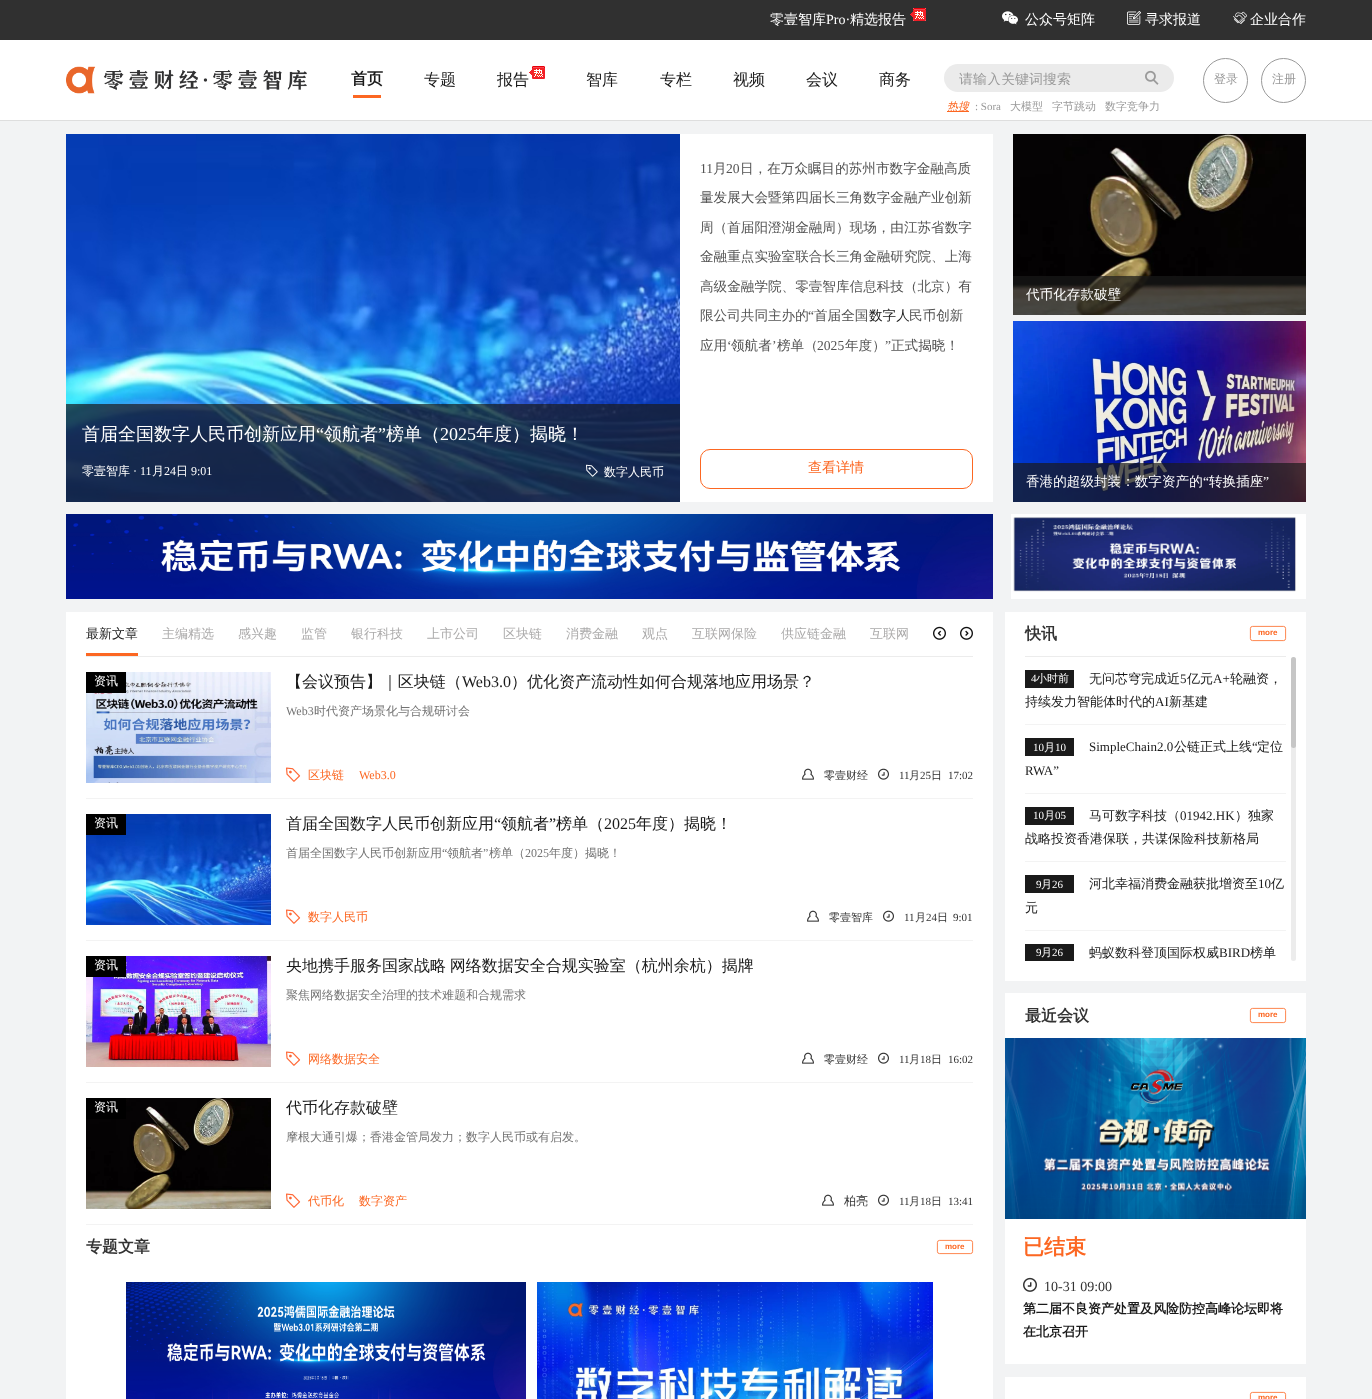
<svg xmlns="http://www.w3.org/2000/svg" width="1372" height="1399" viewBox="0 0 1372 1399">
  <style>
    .t1 { font: 500 14px WenQuanYi Zen Hei; fill: #fff; }
    .t2 { font: 14px Liberation Serif; fill: #fff; }
    .t3 { font: bold 16px WenQuanYi Zen Hei; fill: #1a1a1a; }
    .t4 { font: 500 16px WenQuanYi Zen Hei; fill: #1a1a1a; }
    .t5 { font: 500 14px WenQuanYi Zen Hei; fill: #9a9a9a; }
    .t6 { font: italic 500 11px WenQuanYi Zen Hei; fill: #fc6722; }
    .t7 { font: 11px Liberation Serif; fill: #9a9a9a; }
    .t8 { font: 500 11px WenQuanYi Zen Hei; fill: #9a9a9a; }
    .t9 { font: 500 12px WenQuanYi Zen Hei; fill: #9a9a9a; }
    .t10 { font: 500 18px WenQuanYi Zen Hei; fill: #fff; }
    .t11 { font: 18px Liberation Serif; fill: #fff; }
    .t12 { font: 500 12px WenQuanYi Zen Hei; fill: #fff; }
    .t13 { font: 12px Liberation Serif; fill: #fff; }
    .t14 { font: 13.6px Liberation Serif; fill: #535353; }
    .t15 { font: 500 13.6px WenQuanYi Zen Hei; fill: #535353; }
    .t16 { font: 500 13.6px WenQuanYi Zen Hei; fill: #1a1a1a; }
    .t17 { font: 500 14px WenQuanYi Zen Hei; fill: #fc6722; }
    .t18 { font: 500 13.6px WenQuanYi Zen Hei; fill: #fff; }
    .t19 { font: 13.6px Liberation Serif; fill: #fff; }
    .t20 { font: 500 13px WenQuanYi Zen Hei; fill: #1a1a1a; }
    .t21 { font: 500 13px WenQuanYi Zen Hei; fill: #abaaaa; }
    .t22 { font: 16px Liberation Serif; fill: #1a1a1a; }
    .t23 { font: 12px Liberation Serif; fill: #737373; }
    .t24 { font: 500 12px WenQuanYi Zen Hei; fill: #737373; }
    .t25 { font: 500 12px WenQuanYi Zen Hei; fill: #fc6722; }
    .t26 { font: 12px Liberation Serif; fill: #fc6722; }
    .t27 { font: 500 11px WenQuanYi Zen Hei; fill: #333; }
    .t28 { font: 11px Liberation Serif; fill: #333; }
    .t29 { font: 500 12px WenQuanYi Zen Hei; fill: #333; }
    .t30 { font: bold 16px WenQuanYi Zen Hei; fill: #333; }
    .t31 { font: bold 8px Liberation Sans; fill: #fc6722; }
    .t32 { font: 11px Liberation Serif; fill: #fff; }
    .t33 { font: 500 11px WenQuanYi Zen Hei; fill: #fff; }
    .t34 { font: 13px Liberation Serif; fill: #1a1a1a; }
    .t35 { font: bold 21px WenQuanYi Zen Hei; fill: #fc6722; }
    .t36 { font: 14px Liberation Serif; fill: #333; }
    .t37 { font: bold 13px WenQuanYi Zen Hei; fill: #1a1a1a; }
  </style>
  <defs>
    <clipPath id="clip1"><rect x="959" y="71" width="140" height="14"/></clipPath>
  </defs>
  <rect width="100%" height="100%" fill="#f2f3f4"/>
  <rect x="0" y="40" width="1372" height="80" fill="#fff"/>
  <rect x="0" y="0" width="1372" height="40" fill="#303030"/>
  <text x="770" y="24" class="t1">零壹智库</text>
  <text x="826" y="24" class="t2">Pro·</text>
  <text x="850" y="24" class="t1">精选报告</text>
  <image x="910" y="8" width="16" height="13" href="images/1.png"/>
  <image x="1002" y="11" width="16" height="14" href="images/2.png"/>
  <text x="1025" y="24" class="t1">公众号矩阵</text>
  <image x="1127" y="11" width="14" height="14" href="images/3.png"/>
  <text x="1145" y="24" class="t1">寻求报道</text>
  <image x="1233" y="11" width="14" height="13" href="images/4.png"/>
  <text x="1250" y="24" class="t1">企业合作</text>
  <image x="66" y="66" width="241" height="28" href="images/5.png"/>
  <text x="351" y="84" class="t3">首页</text>
  <rect x="353" y="95" width="28" height="3" fill="#fc6722"/>
  <text x="424" y="85" class="t4">专题</text>
  <text x="497" y="85" class="t4">报告</text>
  <image x="529" y="66" width="16" height="13" href="images/6.png"/>
  <text x="586" y="85" class="t4">智库</text>
  <text x="660" y="85" class="t4">专栏</text>
  <text x="733" y="85" class="t4">视频</text>
  <text x="806" y="85" class="t4">会议</text>
  <text x="879" y="85" class="t4">商务</text>
  <rect x="944" y="64" width="230" height="28" rx="14" fill="#ebebeb"/>
  <g clip-path="url(#clip1)">
    <text x="959" y="84" class="t5">请输入关键词搜索</text>
  </g>
  <image x="1145" y="70" width="14" height="15" href="images/7.png"/>
  <rect x="947" y="111" width="22" height="1" fill="#fc6722"/>
  <text x="947" y="110" class="t6">热搜</text>
  <text x="975" y="110" class="t7">: Sora</text>
  <text x="1010" y="110" class="t8">大模型</text>
  <text x="1052" y="110" class="t8">字节跳动</text>
  <text x="1105" y="110" class="t8">数字竞争力</text>
  <circle cx="1225.5" cy="80.5" r="22" fill="none" stroke="#9a9a9a"/>
  <text x="1214" y="83" class="t9">登录</text>
  <circle cx="1283.5" cy="80.5" r="22" fill="none" stroke="#9a9a9a"/>
  <text x="1272" y="83" class="t9">注册</text>
  <rect x="0" y="120" width="1372" height="1" fill="#dedede"/>
  <rect x="680" y="134" width="313" height="368" fill="#fff"/>
  <image x="66" y="134" width="614" height="368" href="images/8.png"/>
  <rect x="66" y="404" width="614" height="98" fill="#1a1a1ab3"/>
  <text x="82" y="440" class="t10">首届全国数字人民币创新应用</text>
  <text x="316" y="440" class="t11">“</text>
  <text x="324" y="440" class="t10">领航者</text>
  <text x="378" y="440" class="t11">”</text>
  <text x="386" y="440" class="t10">榜单（</text>
  <text x="440" y="440" class="t11">2025</text>
  <text x="476" y="440" class="t10">年度）揭晓！</text>
  <text x="82" y="475" class="t12">零壹智库</text>
  <text x="133" y="475" class="t13">· 11</text>
  <text x="152" y="475" class="t12">月</text>
  <text x="164" y="475" class="t13">24</text>
  <text x="176" y="475" class="t12">日</text>
  <text x="191" y="475" class="t13">9:01</text>
  <image x="586" y="464" width="12" height="13" href="images/9.png"/>
  <text x="604" y="476" class="t12">数字人民币</text>
  <text x="700" y="173" class="t14">11</text>
  <text x="713" y="173" class="t15">月</text>
  <text x="726" y="173" class="t14">20</text>
  <text x="740" y="173" class="t15">日，在万众瞩目的苏州市数字金融高质</text>
  <text x="700" y="202" class="t15">量发展大会暨第四届长三角数字金融产业创新</text>
  <text x="700" y="232" class="t15">周（首届阳澄湖金融周）现场，由江苏省数字</text>
  <text x="700" y="261" class="t15">金融重点实验室联合长三角金融研究院、上海</text>
  <text x="700" y="291" class="t15">高级金融学院、零壹智库信息科技（北京）有</text>
  <text x="700" y="320" class="t15">限公司共同主办的</text>
  <text x="808" y="320" class="t14">“</text>
  <text x="814" y="320" class="t15">首届全国</text>
  <text x="869" y="320" class="t16">数字人</text>
  <text x="909" y="320" class="t15">民币创新</text>
  <text x="700" y="350" class="t15">应用</text>
  <text x="727" y="350" class="t14">‘</text>
  <text x="731" y="350" class="t15">领航者</text>
  <text x="772" y="350" class="t14">’</text>
  <text x="777" y="350" class="t15">榜单（</text>
  <text x="817" y="350" class="t14">2025</text>
  <text x="845" y="350" class="t15">年度）</text>
  <text x="885" y="350" class="t14">”</text>
  <text x="891" y="350" class="t15">正式揭晓！</text>
  <rect x="700.5" y="449.5" width="272" height="39" rx="9.5" fill="none" stroke="#fc6722"/>
  <text x="808" y="472" class="t17">查看详情</text>
  <image x="1013" y="134" width="293" height="181" href="images/10.png"/>
  <rect x="1013" y="276" width="293" height="39" fill="#1a1a1ab3"/>
  <text x="1026" y="299" class="t18">代币化存款破壁</text>
  <image x="1013" y="321" width="293" height="181" href="images/11.png"/>
  <rect x="1013" y="463" width="293" height="39" fill="#1a1a1ab3"/>
  <text x="1026" y="486" class="t18">香港的超级封装：数字资产的</text>
  <text x="1203" y="486" class="t19">“</text>
  <text x="1209" y="486" class="t18">转换插座</text>
  <text x="1263" y="486" class="t19">”</text>
  <image x="66" y="514" width="927" height="85" href="images/12.png"/>
  <image x="1011" y="514" width="295" height="85" href="images/13.png"/>
  <rect x="66" y="612" width="927" height="787" fill="#fff"/>
  <rect x="86" y="656" width="887" height="1" fill="#ececec"/>
  <rect x="86" y="653" width="52" height="3" fill="#fc6722"/>
  <text x="86" y="638" class="t20">最新文章</text>
  <text x="162" y="638" class="t21">主编精选</text>
  <text x="238" y="638" class="t21">感兴趣</text>
  <text x="301" y="638" class="t21">监管</text>
  <text x="351" y="638" class="t21">银行科技</text>
  <text x="427" y="638" class="t21">上市公司</text>
  <text x="503" y="638" class="t21">区块链</text>
  <text x="566" y="638" class="t21">消费金融</text>
  <text x="642" y="638" class="t21">观点</text>
  <text x="692" y="638" class="t21">互联网保险</text>
  <text x="781" y="638" class="t21">供应链金融</text>
  <text x="870" y="638" class="t21">互联网</text>
  <image x="933" y="626" width="13" height="14" href="images/14.png"/>
  <image x="960" y="626" width="13" height="14" href="images/15.png"/>
  <rect x="86" y="798" width="887" height="1" fill="#f3f3f3"/>
  <image x="86" y="672" width="185" height="111" href="images/16.png"/>
  <rect x="86" y="672" width="40" height="21" fill="#000"/>
  <text x="94" y="685" class="t12">资讯</text>
  <text x="286" y="687" class="t4">【会议预告】｜区块链（</text>
  <text x="462" y="687" class="t22">Web3.0</text>
  <text x="511" y="687" class="t4">）优化资产流动性如何合规落地应用场景？</text>
  <text x="286" y="715" class="t23">Web3</text>
  <text x="314" y="715" class="t24">时代资产场景化与合规研讨会</text>
  <image x="286" y="767" width="15" height="15" href="images/17.png"/>
  <text x="308" y="779" class="t25">区块链</text>
  <text x="359" y="779" class="t26">Web3.0</text>
  <image x="802" y="768" width="12" height="12" href="images/18.png"/>
  <text x="824" y="779" class="t27">零壹财经</text>
  <image x="878" y="768" width="11" height="12" href="images/19.png"/>
  <text x="899" y="779" class="t28">11</text>
  <text x="909" y="779" class="t27">月</text>
  <text x="920" y="779" class="t28">25</text>
  <text x="931" y="779" class="t27">日</text>
  <text x="948" y="779" class="t28">17:02</text>
  <rect x="86" y="940" width="887" height="1" fill="#f3f3f3"/>
  <image x="86" y="814" width="185" height="111" href="images/20.png"/>
  <rect x="86" y="814" width="40" height="21" fill="#000"/>
  <text x="94" y="827" class="t12">资讯</text>
  <text x="286" y="829" class="t4">首届全国数字人民币创新应用</text>
  <text x="494" y="829" class="t22">“</text>
  <text x="501" y="829" class="t4">领航者</text>
  <text x="549" y="829" class="t22">”</text>
  <text x="556" y="829" class="t4">榜单（</text>
  <text x="604" y="829" class="t22">2025</text>
  <text x="636" y="829" class="t4">年度）揭晓！</text>
  <text x="286" y="857" class="t24">首届全国数字人民币创新应用</text>
  <text x="442" y="857" class="t23">“</text>
  <text x="447" y="857" class="t24">领航者</text>
  <text x="483" y="857" class="t23">”</text>
  <text x="489" y="857" class="t24">榜单（</text>
  <text x="525" y="857" class="t23">2025</text>
  <text x="549" y="857" class="t24">年度）揭晓！</text>
  <image x="286" y="909" width="15" height="15" href="images/17.png"/>
  <text x="308" y="921" class="t25">数字人民币</text>
  <image x="807" y="910" width="12" height="12" href="images/18.png"/>
  <text x="829" y="921" class="t27">零壹智库</text>
  <image x="883" y="910" width="11" height="12" href="images/19.png"/>
  <text x="904" y="921" class="t28">11</text>
  <text x="915" y="921" class="t27">月</text>
  <text x="926" y="921" class="t28">24</text>
  <text x="937" y="921" class="t27">日</text>
  <text x="953" y="921" class="t28">9:01</text>
  <rect x="86" y="1082" width="887" height="1" fill="#f3f3f3"/>
  <image x="86" y="956" width="185" height="111" href="images/21.png"/>
  <rect x="86" y="956" width="40" height="21" fill="#000"/>
  <text x="94" y="969" class="t12">资讯</text>
  <text x="286" y="971" word-spacing="-1" class="t4">央地携手服务国家战略 网络数据安全合规实验室（杭州余杭）揭牌</text>
  <text x="286" y="999" class="t24">聚焦网络数据安全治理的技术难题和合规需求</text>
  <image x="286" y="1051" width="15" height="15" href="images/17.png"/>
  <text x="308" y="1063" class="t25">网络数据安全</text>
  <image x="802" y="1052" width="12" height="12" href="images/18.png"/>
  <text x="824" y="1063" class="t27">零壹财经</text>
  <image x="878" y="1052" width="11" height="12" href="images/19.png"/>
  <text x="899" y="1063" class="t28">11</text>
  <text x="909" y="1063" class="t27">月</text>
  <text x="920" y="1063" class="t28">18</text>
  <text x="931" y="1063" class="t27">日</text>
  <text x="948" y="1063" class="t28">16:02</text>
  <rect x="86" y="1224" width="887" height="1" fill="#f3f3f3"/>
  <image x="86" y="1098" width="185" height="111" href="images/22.png"/>
  <rect x="86" y="1098" width="40" height="21" fill="#000"/>
  <text x="94" y="1111" class="t12">资讯</text>
  <text x="286" y="1113" class="t4">代币化存款破壁</text>
  <text x="286" y="1141" class="t24">摩根大通引爆；香港金管局发力；数字人民币或有启发。</text>
  <image x="286" y="1193" width="15" height="15" href="images/17.png"/>
  <text x="308" y="1205" class="t25">代币化</text>
  <text x="359" y="1205" class="t25">数字资产</text>
  <image x="822" y="1194" width="12" height="12" href="images/18.png"/>
  <text x="844" y="1205" class="t29">柏亮</text>
  <image x="878" y="1194" width="11" height="12" href="images/19.png"/>
  <text x="899" y="1205" class="t28">11</text>
  <text x="909" y="1205" class="t27">月</text>
  <text x="920" y="1205" class="t28">18</text>
  <text x="931" y="1205" class="t27">日</text>
  <text x="948" y="1205" class="t28">13:41</text>
  <text x="86" y="1252" class="t30">专题文章</text>
  <rect x="937.4" y="1240.4" width="35.2" height="13.2" rx="2.1" fill="none" stroke="#fc6722" stroke-width="0.8"/>
  <text x="945" y="1249" class="t31">more</text>
  <image x="126" y="1282" width="400" height="117" href="images/23.png"/>
  <image x="537" y="1282" width="396" height="117" href="images/24.png"/>
  <rect x="1005" y="612" width="301" height="369" fill="#fff"/>
  <rect x="1025" y="656" width="261" height="1" fill="#ececec"/>
  <text x="1025" y="639" class="t30">快讯</text>
  <rect x="1250.4" y="626.4" width="35.2" height="14.2" rx="2.1" fill="none" stroke="#fc6722" stroke-width="0.8"/>
  <text x="1258" y="635" class="t31">more</text>
  <rect x="1025" y="724" width="261" height="1" fill="#f3f3f3"/>
  <rect x="1025" y="670" width="49" height="18" fill="#1a1a1a"/>
  <text x="1031" y="682" class="t32">4</text>
  <text x="1036" y="682" class="t33">小时前</text>
  <text x="1089" y="683" class="t20">无问芯穹完成近</text>
  <text x="1180" y="683" class="t34">5</text>
  <text x="1187" y="683" class="t20">亿元</text>
  <text x="1213" y="683" class="t34">A+</text>
  <text x="1230" y="683" class="t20">轮融资，</text>
  <text x="1025" y="706" class="t20">持续发力智能体时代的</text>
  <text x="1155" y="706" class="t34">AI</text>
  <text x="1169" y="706" class="t20">新基建</text>
  <rect x="1025" y="793" width="261" height="1" fill="#f3f3f3"/>
  <rect x="1025" y="738" width="49" height="18" fill="#1a1a1a"/>
  <text x="1033" y="751" class="t32">10</text>
  <text x="1044" y="751" class="t33">月</text>
  <text x="1055" y="751" class="t32">10</text>
  <text x="1089" y="751" class="t34">SimpleChain2.0</text>
  <text x="1174" y="751" class="t20">公链正式上线</text>
  <text x="1252" y="751" class="t34">“</text>
  <text x="1257" y="751" class="t20">定位</text>
  <text x="1025" y="775" class="t34">RWA”</text>
  <rect x="1025" y="861" width="261" height="1" fill="#f3f3f3"/>
  <rect x="1025" y="807" width="49" height="18" fill="#1a1a1a"/>
  <text x="1033" y="819" class="t32">10</text>
  <text x="1044" y="819" class="t33">月</text>
  <text x="1055" y="819" class="t32">05</text>
  <text x="1089" y="820" class="t20">马可数字科技（</text>
  <text x="1180" y="820" class="t34">01942.HK</text>
  <text x="1235" y="820" class="t20">）独家</text>
  <text x="1025" y="843" class="t20">战略投资香港保联，共谋保险科技新格局</text>
  <rect x="1025" y="930" width="261" height="1" fill="#f3f3f3"/>
  <rect x="1025" y="875" width="49" height="18" fill="#1a1a1a"/>
  <text x="1036" y="888" class="t32">9</text>
  <text x="1041" y="888" class="t33">月</text>
  <text x="1052" y="888" class="t32">26</text>
  <text x="1089" y="888" class="t20">河北幸福消费金融获批增资至</text>
  <text x="1258" y="888" class="t34">10</text>
  <text x="1271" y="888" class="t20">亿</text>
  <text x="1025" y="912" class="t20">元</text>
  <rect x="1025" y="944" width="49" height="17" fill="#1a1a1a"/>
  <text x="1036" y="956" class="t32">9</text>
  <text x="1041" y="956" class="t33">月</text>
  <text x="1052" y="956" class="t32">26</text>
  <text x="1089" y="957" class="t20">蚂蚁数科登顶国际权威</text>
  <text x="1219" y="957" class="t34">BIRD</text>
  <text x="1250" y="957" class="t20">榜单</text>
  <rect x="1291" y="657" width="5" height="304" rx="2.5" fill="#ececec"/>
  <rect x="1291" y="657" width="5" height="91" rx="2.5" fill="#c6c6c6"/>
  <rect x="1005" y="993" width="301" height="371" fill="#fff"/>
  <text x="1025" y="1021" class="t30">最近会议</text>
  <rect x="1250.4" y="1008.4" width="35.2" height="14.2" rx="2.1" fill="none" stroke="#fc6722" stroke-width="0.8"/>
  <text x="1258" y="1017" class="t31">more</text>
  <image x="1005" y="1038" width="301" height="181" href="images/25.png"/>
  <text x="1023" y="1254" class="t35">已结束</text>
  <image x="1023" y="1277" width="14" height="15" href="images/26.png"/>
  <text x="1044" y="1291" class="t36">10-31 09:00</text>
  <text x="1023" y="1313" class="t37">第二届不良资产处置及风险防控高峰论坛即将</text>
  <text x="1023" y="1336" class="t37">在北京召开</text>
  <rect x="1005" y="1377" width="301" height="22" fill="#fff"/>
  <rect x="1250.4" y="1392.4" width="35.2" height="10.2" rx="2.1" fill="none" stroke="#fc6722" stroke-width="0.8"/>
  <text x="1258" y="1400" class="t31">more</text>
</svg>
